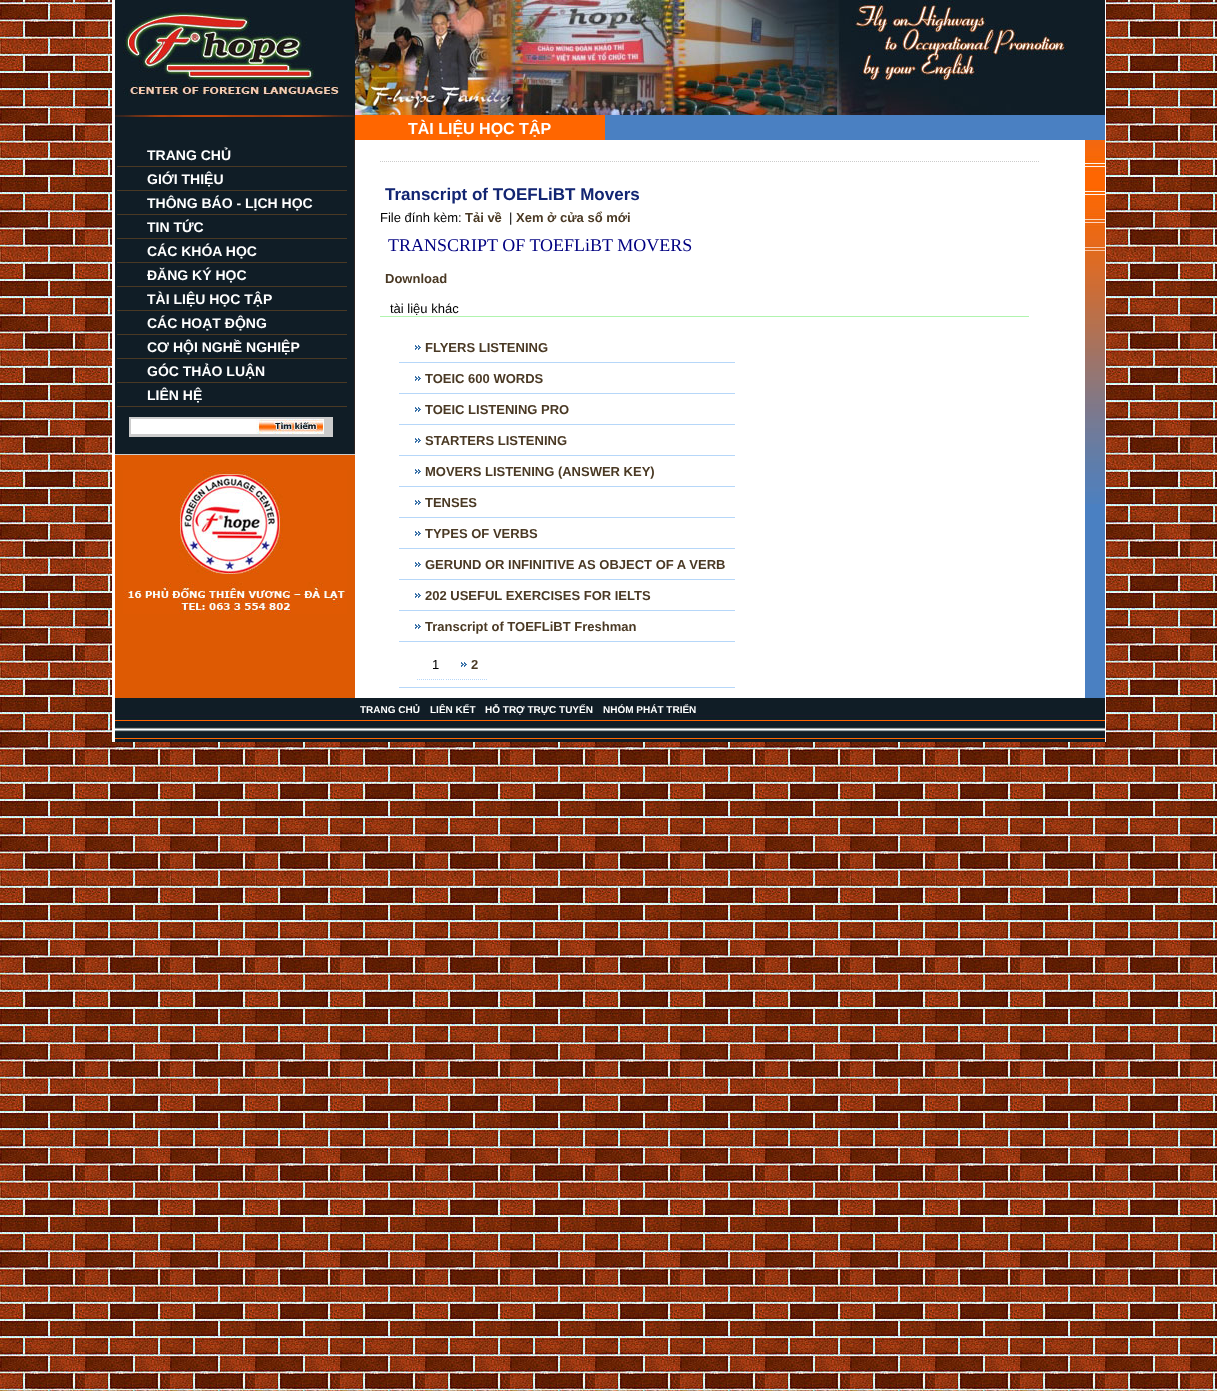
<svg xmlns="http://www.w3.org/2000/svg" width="1217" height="1391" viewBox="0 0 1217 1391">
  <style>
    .t1 { font: bold 14px Liberation Sans; fill: #fff; }
    .t2 { font: bold 16px Liberation Sans; fill: #fff; }
    .t3 { font: bold 17px Liberation Sans; fill: #122572; }
    .t4 { font: 13px Liberation Sans; fill: #000; }
    .t5 { font: bold 13px Liberation Sans; fill: #4a3924; }
    .t6 { font: 18px Liberation Serif; fill: #000080; }
    .t7 { font: bold 10px Liberation Sans; fill: #fff; }
  </style>
  <rect width="100%" height="100%" fill="#fff"/>
  <image x="0" y="0" width="1217" height="1391" href="images/1.png"/>
  <rect x="115" y="455" width="240" height="243" fill="#de5a03"/>
  <rect x="1105" y="0" width="1" height="742" fill="#fff"/>
  <rect x="112" y="0" width="3" height="742" fill="#fff"/>
  <rect x="115" y="0" width="240" height="115" fill="#101d26"/>
  <image x="123" y="8" width="217" height="88" href="images/2.png"/>
  <image x="128" y="11" width="212" height="85" href="images/3.png"/>
  <rect x="115" y="117" width="239" height="337" fill="#101d26"/>
  <image x="115" y="115" width="239" height="2" href="images/4.png"/>
  <rect x="354" y="115" width="1" height="340" fill="#2d2321"/>
  <rect x="115" y="454" width="240" height="1" fill="#ccc"/>
  <rect x="117" y="166" width="230" height="1" fill="#4a3924"/>
  <text x="147" y="160" class="t1">TRANG CHỦ</text>
  <rect x="117" y="190" width="230" height="1" fill="#4a3924"/>
  <text x="147" y="184" class="t1">GIỚI THIỆU</text>
  <rect x="117" y="214" width="230" height="1" fill="#4a3924"/>
  <text x="147" y="208" class="t1">THÔNG BÁO - LỊCH HỌC</text>
  <rect x="117" y="238" width="230" height="1" fill="#4a3924"/>
  <text x="147" y="232" class="t1">TIN TỨC</text>
  <rect x="117" y="262" width="230" height="1" fill="#4a3924"/>
  <text x="147" y="256" class="t1">CÁC KHÓA HỌC</text>
  <rect x="117" y="286" width="230" height="1" fill="#4a3924"/>
  <text x="147" y="280" class="t1">ĐĂNG KÝ HỌC</text>
  <rect x="117" y="310" width="230" height="1" fill="#4a3924"/>
  <text x="147" y="304" class="t1">TÀI LIỆU HỌC TẬP</text>
  <rect x="117" y="334" width="230" height="1" fill="#4a3924"/>
  <text x="147" y="328" class="t1">CÁC HOẠT ĐỘNG</text>
  <rect x="117" y="358" width="230" height="1" fill="#4a3924"/>
  <text x="147" y="352" class="t1">CƠ HỘI NGHỀ NGHIỆP</text>
  <rect x="117" y="382" width="230" height="1" fill="#4a3924"/>
  <text x="147" y="376" class="t1">GÓC THẢO LUẬN</text>
  <rect x="117" y="406" width="230" height="1" fill="#4a3924"/>
  <text x="147" y="400" class="t1">LIÊN HỆ</text>
  <rect x="129" y="417" width="204" height="20" fill="#ccc"/>
  <rect x="131" y="419" width="125" height="15" fill="#fff"/>
  <image x="256" y="419" width="68" height="15" href="images/5.png"/>
  <image x="123" y="470" width="224" height="144" href="images/6.png"/>
  <rect x="1067" y="0" width="38" height="115" fill="#101d26"/>
  <image x="355" y="0" width="712" height="115" href="images/7.png"/>
  <rect x="605" y="115" width="500" height="25" fill="#4a80c2"/>
  <rect x="355" y="115" width="250" height="25" fill="#f60"/>
  <text x="408" y="134" class="t2">TÀI LIỆU HỌC TẬP</text>
  <rect x="1085" y="504" width="20" height="194" fill="#4a80c2"/>
  <image x="1085" y="140" width="20" height="364" href="images/8.png"/>
  <rect x="355" y="140" width="730" height="558" fill="#fff"/>
  <path d="M380 161.5H1039" fill="none" stroke="#ccc" stroke-dasharray="1 1"/>
  <text x="385" y="200" class="t3">Transcript of TOEFLiBT Movers</text>
  <text x="380" y="222" class="t4">File đính kèm:</text>
  <text x="465" y="222" class="t5">Tải về</text>
  <text x="509" y="222" class="t4">|</text>
  <text x="516" y="222" class="t5">Xem ở cửa sổ mới</text>
  <text x="388" y="251" class="t6">TRANSCRIPT OF TOEFLiBT MOVERS</text>
  <text x="385" y="283" class="t5">Download</text>
  <rect x="380" y="316" width="649" height="1" fill="#b0f4ae"/>
  <text x="390" y="313" class="t4">tài liệu khác</text>
  <rect x="399" y="362" width="336" height="1" fill="#b6d7f9"/>
  <image x="415" y="345" width="6" height="5" href="images/9.png"/>
  <text x="425" y="352" class="t5">FLYERS LISTENING</text>
  <rect x="399" y="393" width="336" height="1" fill="#b6d7f9"/>
  <image x="415" y="376" width="6" height="5" href="images/9.png"/>
  <text x="425" y="383" class="t5">TOEIC 600 WORDS</text>
  <rect x="399" y="424" width="336" height="1" fill="#b6d7f9"/>
  <image x="415" y="407" width="6" height="5" href="images/9.png"/>
  <text x="425" y="414" class="t5">TOEIC LISTENING PRO</text>
  <rect x="399" y="455" width="336" height="1" fill="#b6d7f9"/>
  <image x="415" y="438" width="6" height="5" href="images/9.png"/>
  <text x="425" y="445" class="t5">STARTERS LISTENING</text>
  <rect x="399" y="486" width="336" height="1" fill="#b6d7f9"/>
  <image x="415" y="469" width="6" height="5" href="images/9.png"/>
  <text x="425" y="476" class="t5">MOVERS LISTENING (ANSWER KEY)</text>
  <rect x="399" y="517" width="336" height="1" fill="#b6d7f9"/>
  <image x="415" y="500" width="6" height="5" href="images/9.png"/>
  <text x="425" y="507" class="t5">TENSES</text>
  <rect x="399" y="548" width="336" height="1" fill="#b6d7f9"/>
  <image x="415" y="531" width="6" height="5" href="images/9.png"/>
  <text x="425" y="538" class="t5">TYPES OF VERBS</text>
  <rect x="399" y="579" width="336" height="1" fill="#b6d7f9"/>
  <image x="415" y="562" width="6" height="5" href="images/9.png"/>
  <text x="425" y="569" class="t5">GERUND OR INFINITIVE AS OBJECT OF A VERB</text>
  <rect x="399" y="610" width="336" height="1" fill="#b6d7f9"/>
  <image x="415" y="593" width="6" height="5" href="images/9.png"/>
  <text x="425" y="600" class="t5">202 USEFUL EXERCISES FOR IELTS</text>
  <rect x="399" y="641" width="336" height="1" fill="#b6d7f9"/>
  <image x="415" y="624" width="6" height="5" href="images/9.png"/>
  <text x="425" y="631" class="t5">Transcript of TOEFLiBT Freshman</text>
  <rect x="399" y="687" width="336" height="1" fill="#b6d7f9"/>
  <path d="M417 679.5H444" fill="none" stroke="#b6d7f9" stroke-dasharray="1 1"/>
  <text x="432" y="669" class="t4">1</text>
  <path d="M446 679.5H488" fill="none" stroke="#b6d7f9" stroke-dasharray="1 1"/>
  <image x="461" y="662" width="6" height="5" href="images/9.png"/>
  <text x="471" y="669" class="t5">2</text>
  <rect x="115" y="698" width="990" height="44" fill="#101d26"/>
  <image x="115" y="715" width="990" height="24" href="images/10.png"/>
  <text x="360" y="713" class="t7">TRANG CHỦ</text>
  <text x="430" y="713" class="t7">LIÊN KẾT</text>
  <text x="485" y="713" class="t7">HỖ TRỢ TRỰC TUYẾN</text>
  <text x="603" y="713" class="t7">NHÓM PHÁT TRIỂN</text>
</svg>
